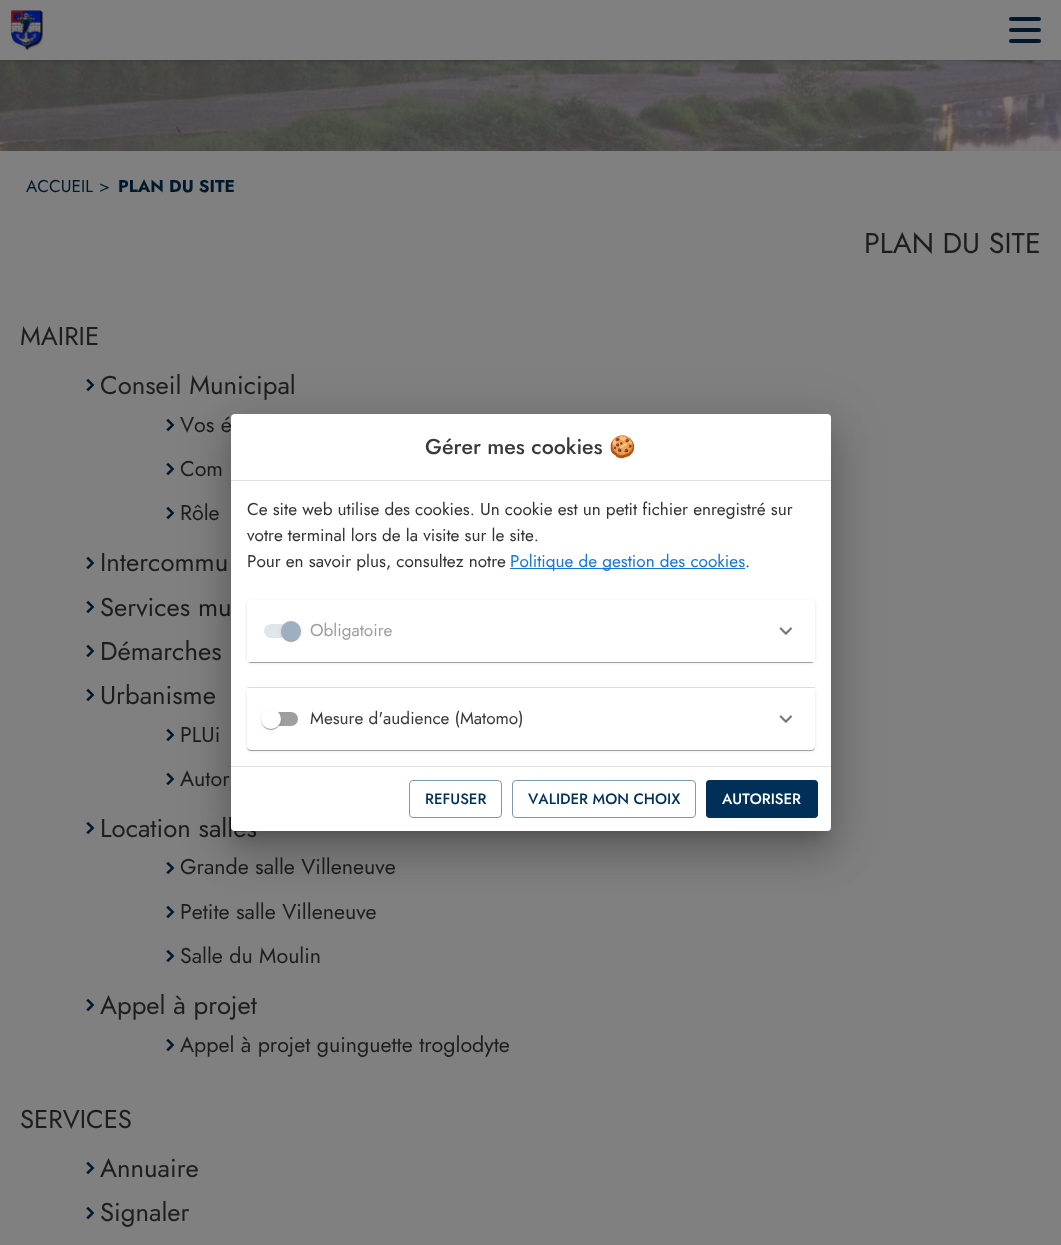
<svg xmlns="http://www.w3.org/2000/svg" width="1061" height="1245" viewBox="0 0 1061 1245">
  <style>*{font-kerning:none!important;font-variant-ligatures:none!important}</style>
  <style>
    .t1 { font: 17.15px Jost; fill: #00182c; }
    .t2 { font: bold 17.15px Jost; fill: #00182c; }
    .t3 { font: 28.75px Jost; fill: #1d1d1d; }
    .t4 { font: 25.75px Jost; fill: #1d1d1d; }
    .t5 { font: 21.4px Jost; fill: #1d1d1d; }
    .t6 { font: 500 21.4px Jost; fill: #3a3a3a; }
    .t7 { font: 21.4px Noto Color Emoji; fill: #3a3a3a; }
    .t8 { font: 17.15px Jost; fill: #333; }
    .t9 { font: 17.15px Jost; fill: #1976d2; }
    .t10 { font: 17.15px Jost; fill: #9e9e9e; }
    .t11 { font: 17.15px Jost; fill: #3a3a3a; }
    .t12 { font: 500 15px Jost; fill: #003057; }
    .t13 { font: 500 15px Jost; fill: #fff; }
  </style>
  <defs>
    <clipPath id="clip1"><path d="M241 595H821V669H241ZM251 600H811C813 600 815 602 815 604V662H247V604C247 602 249 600 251 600Z" clip-rule="evenodd"/></clipPath>
    <clipPath id="clip2"><rect x="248" y="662" width="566" height="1"/></clipPath>
    <clipPath id="clip3"><rect x="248" y="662" width="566" height="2"/></clipPath>
    <clipPath id="clip4"><path d="M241 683H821V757H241ZM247 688H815V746C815 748 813 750 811 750H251C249 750 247 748 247 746Z" clip-rule="evenodd"/></clipPath>
    <clipPath id="clip5"><path d="M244 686H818V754H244ZM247 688H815V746C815 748 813 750 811 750H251C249 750 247 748 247 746Z" clip-rule="evenodd"/></clipPath>
    <clipPath id="clip6"><path d="M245 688H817V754H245ZM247 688H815V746C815 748 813 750 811 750H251C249 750 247 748 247 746Z" clip-rule="evenodd"/></clipPath>
  </defs>
  <rect width="100%" height="100%" fill="#fff"/>
  <image x="0" y="60" width="1061" height="91" href="images/2.png"/>
  <rect x="0" y="0" width="1061" height="60" fill="#00000040" filter="blur(2px)"/>
  <rect x="0" y="0" width="1061" height="60" fill="#808080"/>
  <image x="10" y="10" width="33" height="40" href="images/1.png"/>
  <rect x="1009" y="17" width="32" height="4" rx="2" fill="#00182c"/>
  <rect x="1009" y="28" width="32" height="4" rx="2" fill="#00182c"/>
  <rect x="1009" y="39" width="32" height="4" rx="2" fill="#00182c"/>
  <rect x="0" y="151" width="1061" height="1094" fill="#808080"/>
  <text x="26" y="192" class="t1">ACCUEIL</text>
  <text x="99" y="192" class="t1">&gt;</text>
  <text x="118" y="192" class="t2">PLAN DU SITE</text>
  <text x="864" y="253" class="t3">PLAN DU SITE</text>
  <text x="20" y="345" class="t4">MAIRIE</text>
  <image x="86" y="378" width="9" height="14" href="images/3.png"/>
  <text x="100" y="394" class="t4">Conseil Municipal</text>
  <image x="166" y="418" width="9" height="14" href="images/3.png"/>
  <text x="180" y="432" class="t5">Vos é</text>
  <image x="166" y="462" width="9" height="14" href="images/3.png"/>
  <text x="180" y="476" class="t5">Com</text>
  <image x="166" y="506" width="9" height="14" href="images/3.png"/>
  <text x="180" y="520" class="t5">Rôle</text>
  <image x="86" y="556" width="9" height="14" href="images/3.png"/>
  <text x="100" y="571" class="t4">Intercommu</text>
  <image x="86" y="600" width="9" height="14" href="images/3.png"/>
  <text x="100" y="616" class="t4">Services mu</text>
  <image x="86" y="644" width="9" height="14" href="images/3.png"/>
  <text x="100" y="660" class="t4">Démarches</text>
  <image x="86" y="688" width="9" height="14" href="images/3.png"/>
  <text x="100" y="704" class="t4">Urbanisme</text>
  <image x="166" y="728" width="9" height="14" href="images/3.png"/>
  <text x="180" y="742" class="t5">PLUi</text>
  <image x="166" y="772" width="9" height="14" href="images/3.png"/>
  <text x="180" y="786" class="t5">Autor</text>
  <image x="86" y="821" width="9" height="14" href="images/3.png"/>
  <text x="100" y="837" class="t4">Location salles</text>
  <image x="166" y="861" width="9" height="14" href="images/3.png"/>
  <text x="180" y="874" class="t5">Grande salle Villeneuve</text>
  <image x="166" y="905" width="9" height="14" href="images/3.png"/>
  <text x="180" y="919" class="t5">Petite salle Villeneuve</text>
  <image x="166" y="949" width="9" height="14" href="images/3.png"/>
  <text x="180" y="963" class="t5">Salle du Moulin</text>
  <image x="86" y="998" width="9" height="14" href="images/3.png"/>
  <text x="100" y="1014" class="t4">Appel à projet</text>
  <image x="166" y="1038" width="9" height="14" href="images/3.png"/>
  <text x="180" y="1052" class="t5">Appel à projet guinguette troglodyte</text>
  <text x="20" y="1128" class="t4">SERVICES</text>
  <image x="86" y="1161" width="9" height="14" href="images/3.png"/>
  <text x="100" y="1177" class="t4">Annuaire</text>
  <image x="86" y="1206" width="9" height="14" href="images/3.png"/>
  <text x="100" y="1221" class="t4">Signaler</text>
  <rect x="223" y="415" width="616" height="433" rx="12" fill="#0000001f" filter="blur(23px)"/>
  <rect x="228" y="435" width="606" height="423" rx="7" fill="#00000024" filter="blur(19px)"/>
  <rect x="238" y="432" width="586" height="403" fill="#00000033" filter="blur(7.5px)"/>
  <rect x="231" y="414" width="600" height="417" rx="4" fill="#fff"/>
  <text x="425" y="454" class="t6">Gérer mes cookies</text>
  <text x="609" y="454" class="t7">🍪</text>
  <rect x="231" y="480" width="600" height="1" fill="#e0e0e0"/>
  <rect x="231" y="766" width="600" height="1" fill="#e0e0e0"/>
  <text x="247" y="515" class="t8">Ce site web utilise des cookies. Un cookie est un petit fichier enregistré sur</text>
  <text x="247" y="541" class="t8">votre terminal lors de la visite sur le site.</text>
  <text x="247" y="567" class="t8">Pour en savoir plus, consultez notre</text>
  <rect x="510" y="568" width="235" height="1" fill="#1976d2"/>
  <text x="510" y="567" class="t9">Politique de gestion des cookies</text>
  <text x="745" y="567" class="t8">.</text>
  <g clip-path="url(#clip1)">
    <rect x="247" y="601" width="568" height="62" rx="4" fill="#0000001f" filter="blur(1.5px)"/>
  </g>
  <g clip-path="url(#clip2)">
    <rect x="247" y="601" width="568" height="62" rx="4" fill="#00000024" filter="blur(0.5px)"/>
  </g>
  <g clip-path="url(#clip3)">
    <rect x="248" y="603" width="566" height="60" rx="3" fill="#00000033" filter="blur(0.5px)"/>
  </g>
  <rect x="264" y="624" width="34" height="14" rx="7" fill="#e0e6eb"/>
  <rect x="281" y="622" width="20" height="20" rx="10" fill="#0000001f" filter="blur(1.5px)"/>
  <rect x="281" y="622" width="20" height="20" rx="10" fill="#00000024" filter="blur(0.5px)"/>
  <rect x="282" y="624" width="18" height="18" rx="9" fill="#00000033" filter="blur(0.5px)"/>
  <circle cx="291" cy="631" r="10" fill="#9eb0bf"/>
  <text x="310" y="636" class="t10">Obligatoire</text>
  <image x="779" y="627" width="14" height="8" href="images/4.png"/>
  <g clip-path="url(#clip4)">
    <rect x="247" y="689" width="568" height="62" rx="4" fill="#0000001f" filter="blur(1.5px)"/>
  </g>
  <g clip-path="url(#clip5)">
    <rect x="247" y="689" width="568" height="62" rx="4" fill="#00000024" filter="blur(0.5px)"/>
  </g>
  <g clip-path="url(#clip6)">
    <rect x="248" y="691" width="566" height="60" rx="3" fill="#00000033" filter="blur(0.5px)"/>
  </g>
  <rect x="247" y="687" width="568" height="1" fill="#0000001f"/>
  <rect x="264" y="712" width="34" height="14" rx="7" fill="#9e9e9e"/>
  <rect x="261" y="710" width="20" height="20" rx="10" fill="#0000001f" filter="blur(1.5px)"/>
  <rect x="261" y="710" width="20" height="20" rx="10" fill="#00000024" filter="blur(0.5px)"/>
  <rect x="262" y="712" width="18" height="18" rx="9" fill="#00000033" filter="blur(0.5px)"/>
  <circle cx="271" cy="719" r="10" fill="#fff"/>
  <text x="310" y="724" class="t11">Mesure d'audience (Matomo)</text>
  <image x="779" y="715" width="14" height="8" href="images/4.png"/>
  <rect x="409.5" y="780.5" width="92" height="37" rx="3.5" fill="none" stroke="#8098ab"/>
  <text x="425" y="804" class="t12">REFUSER</text>
  <rect x="512.5" y="780.5" width="183" height="37" rx="3.5" fill="none" stroke="#8098ab"/>
  <text x="528" y="804" class="t12">VALIDER MON CHOIX</text>
  <rect x="706" y="780" width="112" height="38" rx="4" fill="#003057"/>
  <rect x="706.5" y="780.5" width="111" height="37" rx="3.5" fill="none" stroke="#00305780"/>
  <text x="722" y="804" class="t13">AUTORISER</text>
</svg>
